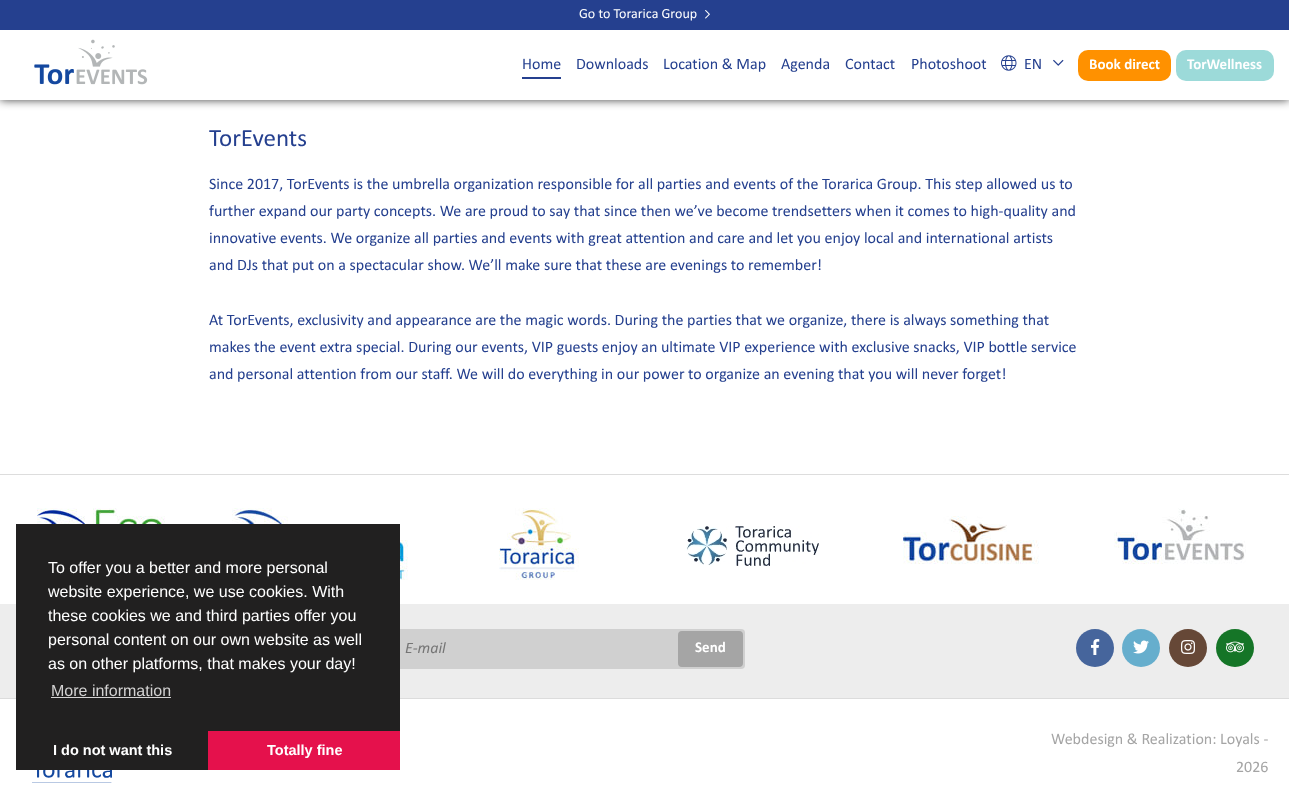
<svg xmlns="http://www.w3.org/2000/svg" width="1289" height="786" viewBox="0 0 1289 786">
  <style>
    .t1 { font: 16px Liberation Sans; fill: #fff; }
    .t2 { font: 16px Liberation Sans; fill: #d3d2d2; }
    .t3 { font: bold 14.5px Liberation Sans; fill: #fff; }
    .t4 { font: 14px Calibri; fill: #fff; }
    .t5 { font: 16px Calibri; fill: #25408f; }
    .t6 { font: bold 15px Calibri; fill: #fff; }
    .t7 { font: 25px Calibri; fill: #25408f; }
    .t8 { font: italic 16px Calibri; fill: #757575; }
    .t9 { font: 16px Calibri; fill: #a5a5a5; }
  </style>
  <rect width="100%" height="100%" fill="#fff"/>
  <image x="232" y="508" width="176" height="72" href="images/6.png"/>
  <rect x="0" y="604" width="1289" height="94" fill="#ededed"/>
  <rect x="0" y="698" width="1289" height="1" fill="#dcdcdc"/>
  <rect x="395" y="629" width="350" height="40" rx="4" fill="#d0d0d0"/>
  <rect x="395" y="629" width="245" height="40" rx="4" fill="#d0d0d0"/>
  <rect x="16" y="524" width="384" height="246" fill="#212020"/>
  <text x="48" y="573" class="t1">To offer you a better and more personal</text>
  <text x="48" y="597" class="t1">website experience, we use cookies. With</text>
  <text x="48" y="621" class="t1">these cookies we and third parties offer you</text>
  <text x="48" y="645" class="t1">personal content on our own website as well</text>
  <text x="48" y="669" class="t1">as on other platforms, that makes your day!</text>
  <text x="51" y="696" class="t2">More information</text>
  <rect x="51" y="697" width="120" height="1" fill="#d3d2d2"/>
  <text x="53" y="755" class="t3">I do not want this</text>
  <rect x="208" y="731" width="192" height="39" fill="#e5114c"/>
  <text x="267" y="755" class="t3">Totally fine</text>
  <rect x="0" y="30" width="1289" height="70" fill="#000000bf" filter="blur(5px)"/>
  <rect x="0" y="0" width="1289" height="30" fill="#25408f"/>
  <text x="579" y="18" class="t4">Go to Torarica Group</text>
  <image x="705" y="10" width="5" height="9" href="images/1.png"/>
  <rect x="0" y="30" width="1289" height="70" fill="#fff"/>
  <image x="34" y="39" width="114" height="46" href="images/2.png"/>
  <text x="522" y="69" class="t5">Home</text>
  <rect x="522" y="77" width="39" height="2" fill="#25408f"/>
  <text x="576" y="69" class="t5">Downloads</text>
  <text x="663" y="69" class="t5">Location &amp; Map</text>
  <text x="781" y="69" class="t5">Agenda</text>
  <text x="845" y="69" class="t5">Contact</text>
  <text x="911" y="69" class="t5">Photoshoot</text>
  <image x="1001" y="55" width="16" height="16" href="images/3.png"/>
  <text x="1024" y="69" class="t5">EN</text>
  <image x="1053" y="59" width="11" height="7" href="images/4.png"/>
  <rect x="1078" y="50" width="93" height="31" rx="10" fill="#ff9100"/>
  <text x="1089" y="69" class="t6">Book direct</text>
  <rect x="1176" y="50" width="98" height="31" rx="10" fill="#9cdad9"/>
  <text x="1187" y="69" class="t6">TorWellness</text>
  <text x="209" y="146" class="t7">TorEvents</text>
  <text x="209" y="189" class="t5">Since 2017, TorEvents is the umbrella organization responsible for all parties and events of the Torarica Group. This step allowed us to</text>
  <text x="209" y="216" class="t5">further expand our party concepts. We are proud to say that since then we’ve become trendsetters when it comes to high-quality and</text>
  <text x="209" y="243" class="t5">innovative events. We organize all parties and events with great attention and care and let you enjoy local and international artists</text>
  <text x="209" y="270" class="t5">and DJs that put on a spectacular show. We’ll make sure that these are evenings to remember!</text>
  <text x="209" y="325" class="t5">At TorEvents, exclusivity and appearance are the magic words. During the parties that we organize, there is always something that</text>
  <text x="209" y="352" class="t5">makes the event extra special. During our events, VIP guests enjoy an ultimate VIP experience with exclusive snacks, VIP bottle service</text>
  <text x="209" y="379" class="t5">and personal attention from our staff. We will do everything in our power to organize an evening that you will never forget!</text>
  <rect x="0" y="474" width="1289" height="1" fill="#ddd"/>
  <image x="37" y="508" width="128" height="16" href="images/5.png"/>
  <image x="499" y="508" width="80" height="72" href="images/7.png"/>
  <image x="686" y="526" width="133" height="40" href="images/8.png"/>
  <image x="903" y="516" width="136" height="48" href="images/9.png"/>
  <image x="1114" y="508" width="132" height="56" href="images/10.png"/>
  <text x="405" y="653" class="t8">E-mail</text>
  <rect x="678" y="631" width="65" height="36" rx="4" fill="#a5a5a5"/>
  <text x="695" y="652" class="t6">Send</text>
  <circle cx="1095" cy="648" r="19" fill="#46659c"/>
  <image x="1091" y="639" width="9" height="16" href="images/11.png"/>
  <circle cx="1141" cy="648" r="19" fill="#66aecd"/>
  <image x="1133" y="640" width="16" height="14" href="images/12.png"/>
  <circle cx="1188" cy="648" r="19" fill="#664837"/>
  <image x="1181" y="640" width="14" height="14" href="images/13.png"/>
  <circle cx="1235" cy="648" r="19" fill="#157527"/>
  <image x="1226" y="641" width="18" height="12" href="images/14.png"/>
  <text x="1051" y="744" class="t9">Webdesign &amp; Realization: Loyals -</text>
  <text x="1236" y="772" class="t9">2026</text>
  <image x="32" y="770" width="80" height="13" href="images/15.png"/>
</svg>
